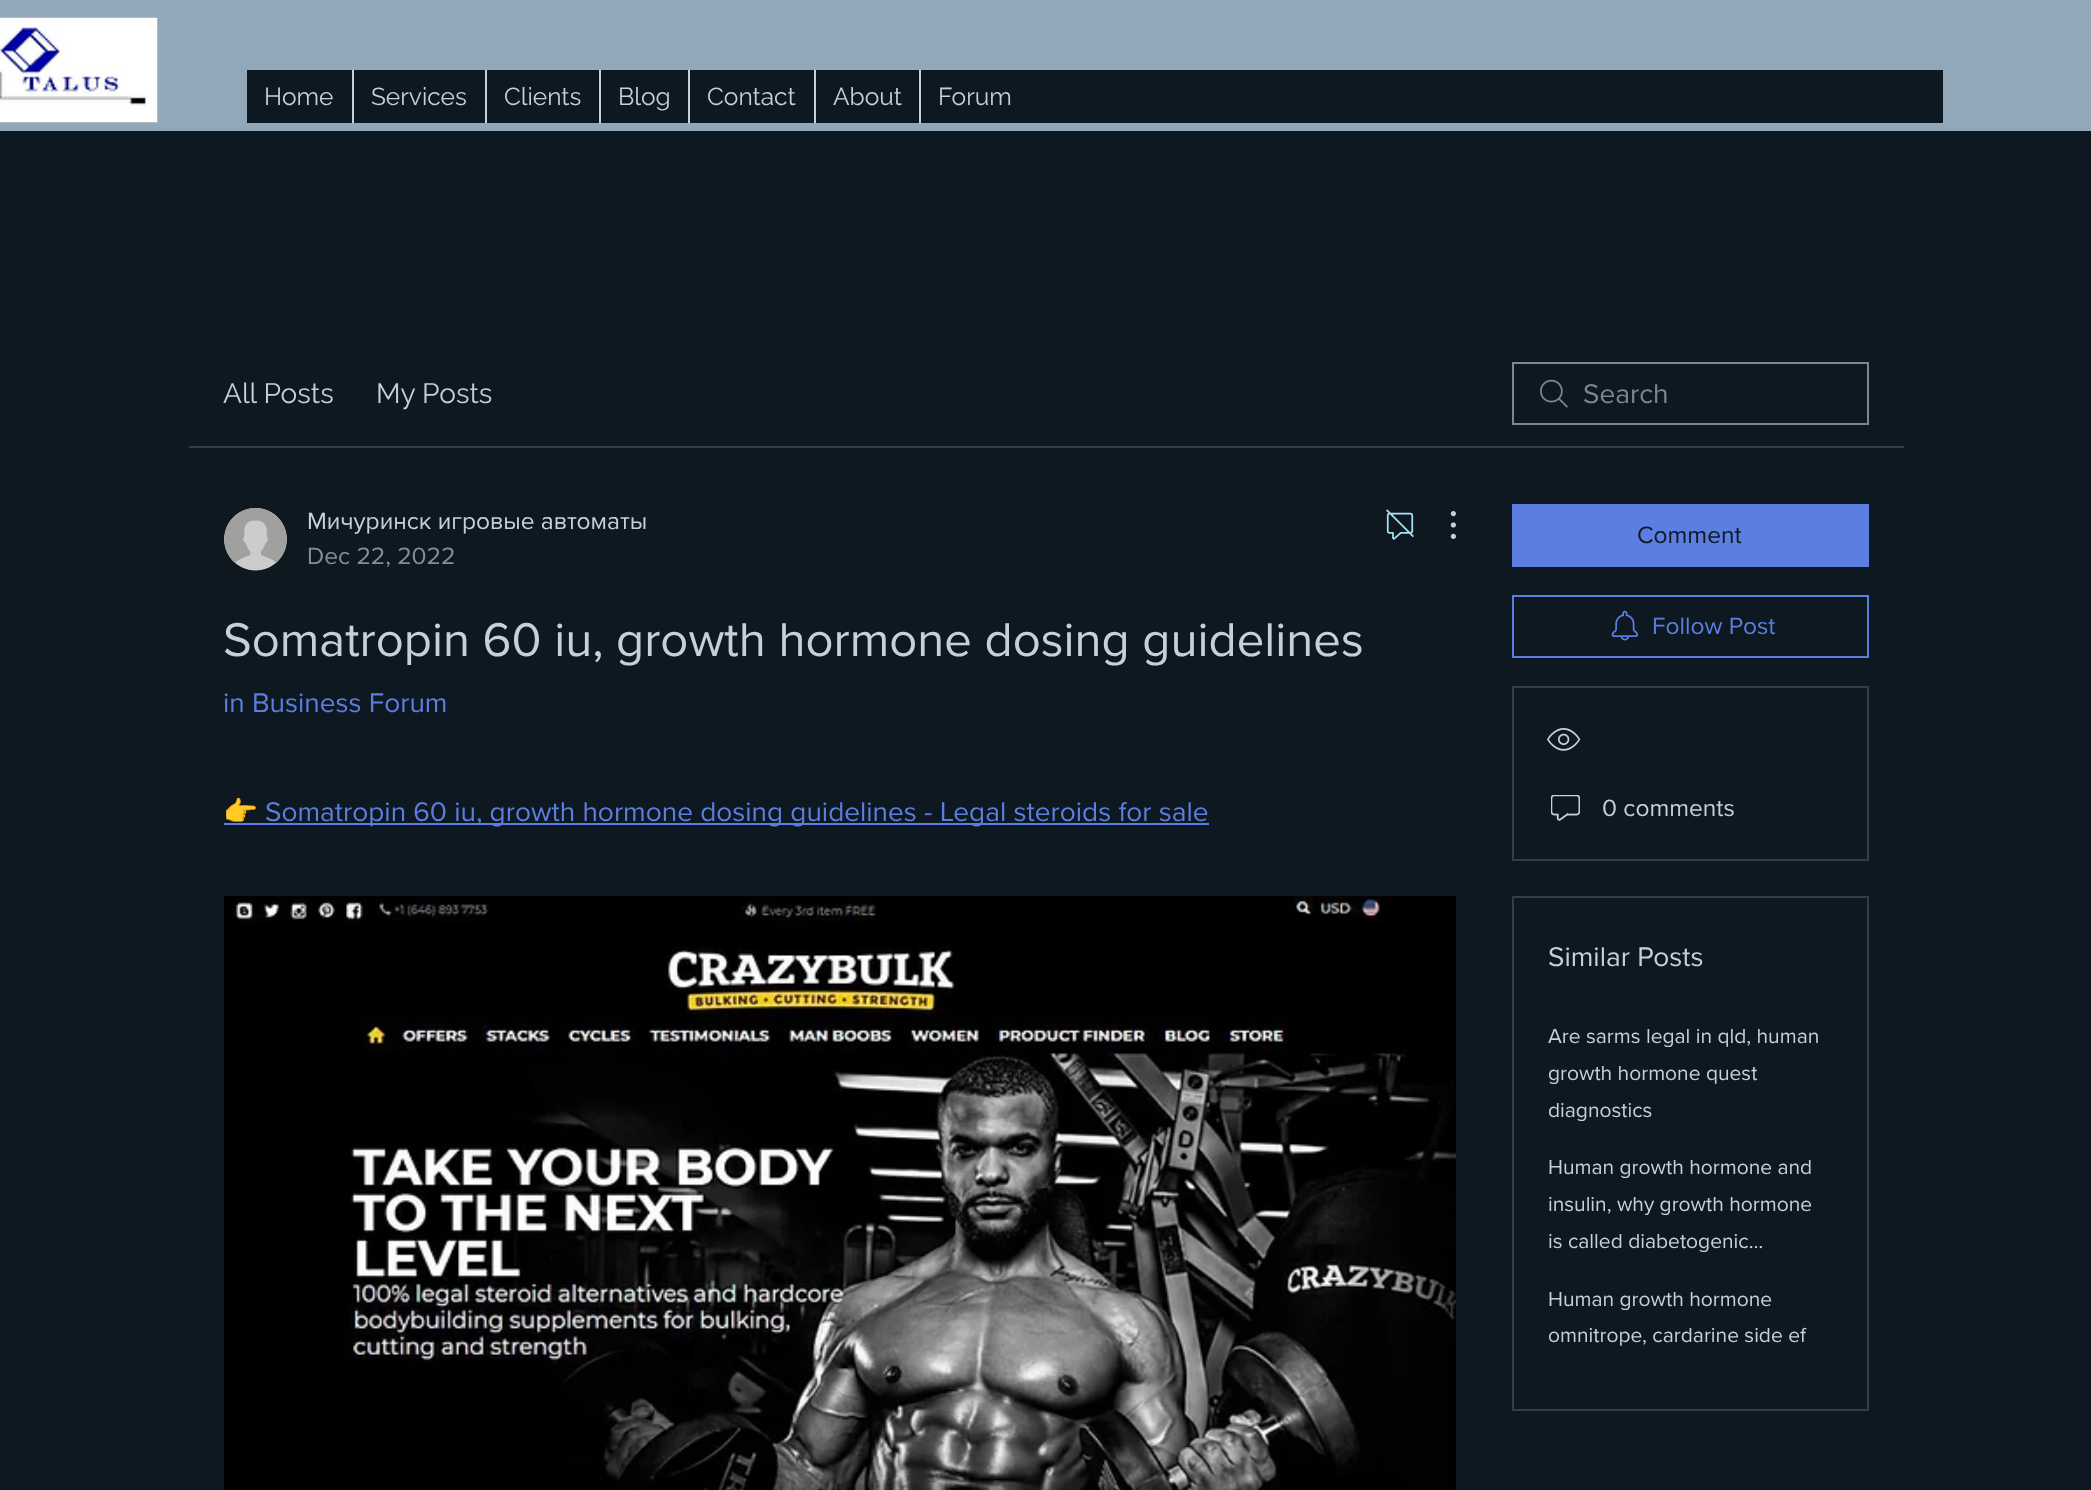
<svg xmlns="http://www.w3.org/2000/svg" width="2091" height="1490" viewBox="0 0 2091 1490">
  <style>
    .t1 { font: 24.5px Raleway; fill: #c5d0d9; }
    .t2 { font: 28px Raleway; fill: #c5d0d9; }
    .t3 { font: 28px 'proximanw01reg'; fill: #7c868f; }
    .t4 { font: 24.5px 'proximanw01reg'; fill: #c5d0d9; }
    .t5 { font: 24.5px 'proximanw01reg'; fill: #838e97; }
    .t6 { font: 49px 'proximanw01reg'; fill: #c5d0d9; }
    .t7 { font: 28px 'proximanw01reg'; fill: #5b7ee0; }
    .t8 { font: 28px Noto Color Emoji; fill: #5b7ee0; }
    .t9 { font: 24.5px 'proximanw01reg'; fill: #0e1821; }
    .t10 { font: 24.5px 'proximanw01reg'; fill: #5b7ee0; }
    .t11 { font: 28px 'proximanw01reg'; fill: #c5d0d9; }
    .t12 { font: 21px 'proximanw01reg'; fill: #c5d0d9; }
  </style>
  <defs>
    <clipPath id="clip1"><rect x="224" y="749" width="1232" height="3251"/></clipPath>
  </defs>
  <rect width="100%" height="100%" fill="#92a8b9"/>
  <image x="0" y="17" width="158" height="106" href="images/1.png"/>
  <rect x="247" y="70" width="1696" height="53" fill="#0e1821"/>
  <text x="264" y="105" class="t1">Home</text>
  <rect x="352" y="70" width="2" height="53" fill="#c5d0d9"/>
  <text x="371" y="105" class="t1">Services</text>
  <rect x="485" y="70" width="2" height="53" fill="#c5d0d9"/>
  <text x="504" y="105" class="t1">Clients</text>
  <rect x="599" y="70" width="2" height="53" fill="#c5d0d9"/>
  <text x="618" y="105" class="t1">Blog</text>
  <rect x="688" y="70" width="2" height="53" fill="#c5d0d9"/>
  <text x="707" y="105" class="t1">Contact</text>
  <rect x="814" y="70" width="2" height="53" fill="#c5d0d9"/>
  <text x="833" y="105" class="t1">About</text>
  <rect x="919" y="70" width="2" height="53" fill="#c5d0d9"/>
  <text x="938" y="105" class="t1">Forum</text>
  <rect x="0" y="131" width="2091" height="1359" fill="#0e1821"/>
  <rect x="189" y="446" width="1715" height="2" fill="#333d46"/>
  <text x="223" y="403" class="t2">All Posts</text>
  <text x="376" y="403" class="t2">My Posts</text>
  <image x="1540" y="379" width="28" height="29" href="images/2.png"/>
  <rect x="1513" y="363" width="355" height="61" fill="none" stroke="#7c868f" stroke-width="2"/>
  <text x="1583" y="403" class="t3">Search</text>
  <image x="224" y="508" width="63" height="63" href="images/3.png"/>
  <text x="307" y="529" class="t4">Мичуринск игровые автоматы</text>
  <text x="307" y="564" class="t5">Dec 22, 2022</text>
  <image x="1386" y="509" width="28" height="31" href="images/4.png"/>
  <image x="1450" y="511" width="6" height="28" href="images/5.png"/>
  <text x="223" y="656" class="t6">Somatropin 60 iu, growth hormone dosing guidelines</text>
  <text x="223" y="712" class="t7">in Business Forum</text>
  <rect x="224" y="823" width="985" height="2" fill="#5b7ee0"/>
  <g clip-path="url(#clip1)">
    <text x="223" y="821" class="t8">👉</text>
  </g>
  <text x="265" y="821" class="t7">Somatropin 60 iu, growth hormone dosing guidelines - Legal steroids for sale</text>
  <image x="224" y="896" width="1232" height="594" href="images/6.png"/>
  <rect x="1512" y="504" width="357" height="63" fill="#5b7ee0"/>
  <text x="1637" y="543" class="t9">Comment</text>
  <rect x="1513" y="596" width="355" height="61" fill="none" stroke="#5b7ee0" stroke-width="2"/>
  <image x="1611" y="610" width="27" height="31" href="images/7.png"/>
  <text x="1652" y="634" class="t10">Follow Post</text>
  <rect x="1513" y="687" width="355" height="173" fill="none" stroke="#333d46" stroke-width="2"/>
  <image x="1547" y="728" width="34" height="23" href="images/8.png"/>
  <image x="1551" y="795" width="29" height="26" href="images/9.png"/>
  <text x="1602" y="816" class="t4">0 comments</text>
  <rect x="1513" y="897" width="355" height="513" fill="none" stroke="#333d46" stroke-width="2"/>
  <text x="1548" y="966" class="t11">Similar Posts</text>
  <text x="1548" y="1043" class="t12">Are sarms legal in qld, human</text>
  <text x="1548" y="1080" class="t12">growth hormone quest</text>
  <text x="1548" y="1117" class="t12">diagnostics</text>
  <text x="1548" y="1174" class="t12">Human growth hormone and</text>
  <text x="1548" y="1211" class="t12">insulin, why growth hormone</text>
  <text x="1548" y="1248" class="t12">is called diabetogenic…</text>
  <text x="1548" y="1306" class="t12">Human growth hormone</text>
  <text x="1548" y="1342" class="t12">omnitrope, cardarine side ef</text>
</svg>
